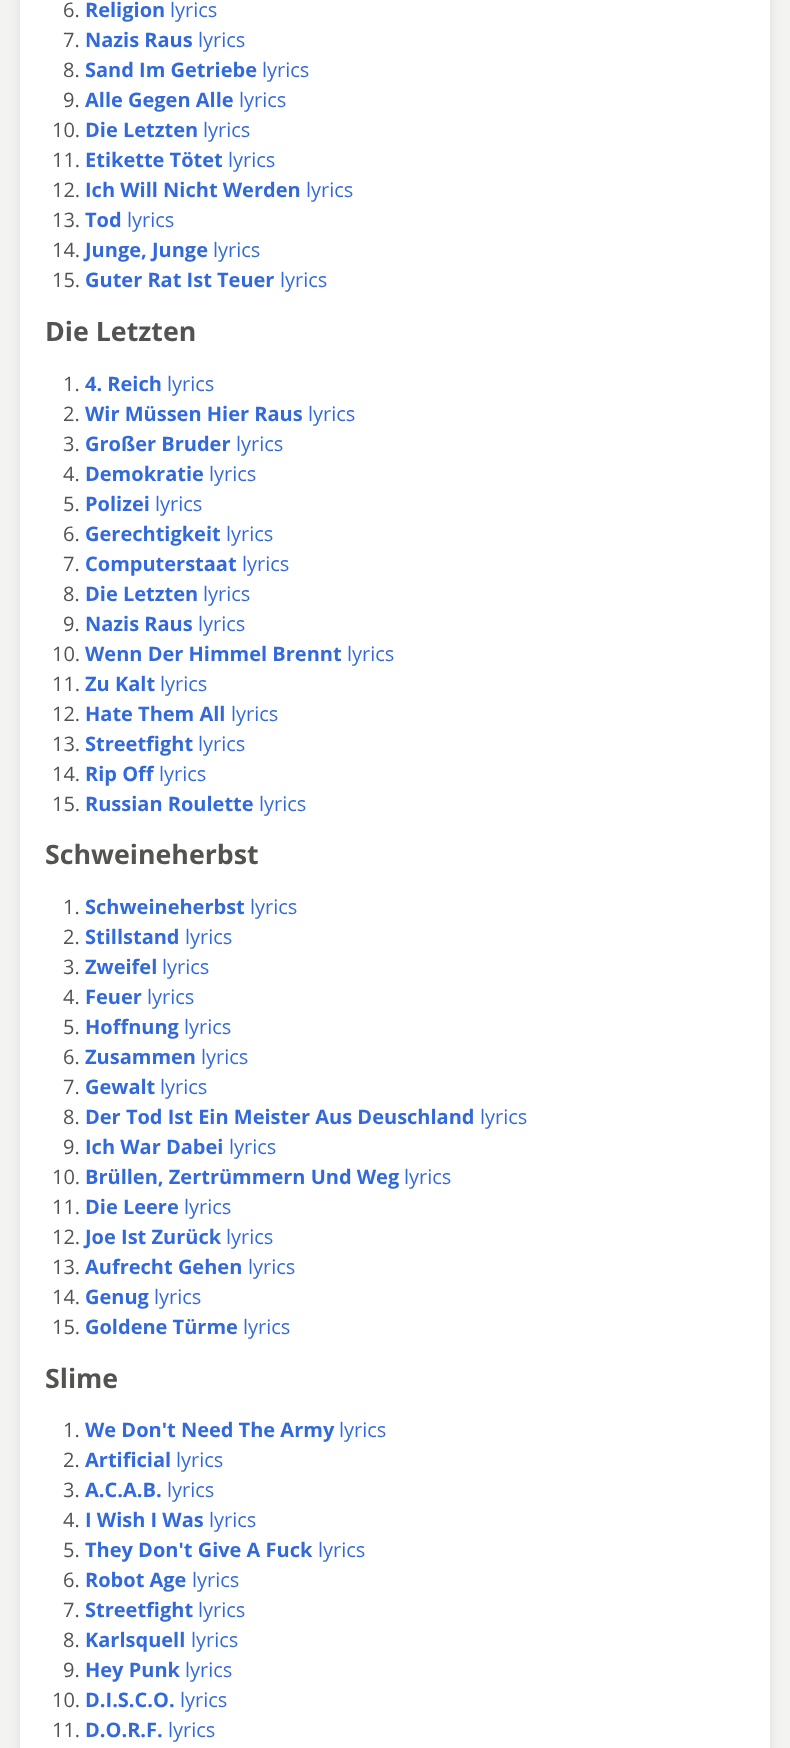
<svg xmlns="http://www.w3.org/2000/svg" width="790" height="1748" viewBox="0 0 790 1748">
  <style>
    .t1 { font: 20px Open Sans; fill: #535451; }
    .t2 { font: bold 20px Open Sans; fill: #336adb; }
    .t3 { font: 20px Open Sans; fill: #336adb; }
    .t4 { font: bold 26.75px Open Sans; fill: #535451; }
  </style>
  <rect width="100%" height="100%" fill="#f3f3f1"/>
  <rect x="21" y="-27" width="748" height="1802" rx="9" fill="#0000001a" filter="blur(6px)"/>
  <rect x="20" y="0" width="750" height="1748" fill="#fff"/>
  <text x="63" y="17" class="t1">6.</text>
  <text x="85" y="17" class="t2">Religion</text>
  <text x="170" y="17" class="t3">lyrics</text>
  <text x="63" y="47" class="t1">7.</text>
  <text x="85" y="47" class="t2">Nazis Raus</text>
  <text x="198" y="47" class="t3">lyrics</text>
  <text x="63" y="77" class="t1">8.</text>
  <text x="85" y="77" class="t2">Sand Im Getriebe</text>
  <text x="262" y="77" class="t3">lyrics</text>
  <text x="63" y="107" class="t1">9.</text>
  <text x="85" y="107" class="t2">Alle Gegen Alle</text>
  <text x="239" y="107" class="t3">lyrics</text>
  <text x="52" y="137" class="t1">10.</text>
  <text x="85" y="137" class="t2">Die Letzten</text>
  <text x="203" y="137" class="t3">lyrics</text>
  <text x="52" y="167" class="t1">11.</text>
  <text x="85" y="167" class="t2">Etikette Tötet</text>
  <text x="228" y="167" class="t3">lyrics</text>
  <text x="52" y="197" class="t1">12.</text>
  <text x="85" y="197" class="t2">Ich Will Nicht Werden</text>
  <text x="306" y="197" class="t3">lyrics</text>
  <text x="52" y="227" class="t1">13.</text>
  <text x="85" y="227" class="t2">Tod</text>
  <text x="127" y="227" class="t3">lyrics</text>
  <text x="52" y="257" class="t1">14.</text>
  <text x="85" y="257" class="t2">Junge, Junge</text>
  <text x="213" y="257" class="t3">lyrics</text>
  <text x="52" y="287" class="t1">15.</text>
  <text x="85" y="287" class="t2">Guter Rat Ist Teuer</text>
  <text x="280" y="287" class="t3">lyrics</text>
  <text x="45" y="341" class="t4">Die Letzten</text>
  <text x="63" y="391" class="t1">1.</text>
  <text x="85" y="391" class="t2">4. Reich</text>
  <text x="167" y="391" class="t3">lyrics</text>
  <text x="63" y="421" class="t1">2.</text>
  <text x="85" y="421" class="t2">Wir Müssen Hier Raus</text>
  <text x="308" y="421" class="t3">lyrics</text>
  <text x="63" y="451" class="t1">3.</text>
  <text x="85" y="451" class="t2">Großer Bruder</text>
  <text x="236" y="451" class="t3">lyrics</text>
  <text x="63" y="481" class="t1">4.</text>
  <text x="85" y="481" class="t2">Demokratie</text>
  <text x="209" y="481" class="t3">lyrics</text>
  <text x="63" y="511" class="t1">5.</text>
  <text x="85" y="511" class="t2">Polizei</text>
  <text x="155" y="511" class="t3">lyrics</text>
  <text x="63" y="541" class="t1">6.</text>
  <text x="85" y="541" class="t2">Gerechtigkeit</text>
  <text x="226" y="541" class="t3">lyrics</text>
  <text x="63" y="571" class="t1">7.</text>
  <text x="85" y="571" class="t2">Computerstaat</text>
  <text x="242" y="571" class="t3">lyrics</text>
  <text x="63" y="601" class="t1">8.</text>
  <text x="85" y="601" class="t2">Die Letzten</text>
  <text x="203" y="601" class="t3">lyrics</text>
  <text x="63" y="631" class="t1">9.</text>
  <text x="85" y="631" class="t2">Nazis Raus</text>
  <text x="198" y="631" class="t3">lyrics</text>
  <text x="52" y="661" class="t1">10.</text>
  <text x="85" y="661" class="t2">Wenn Der Himmel Brennt</text>
  <text x="347" y="661" class="t3">lyrics</text>
  <text x="52" y="691" class="t1">11.</text>
  <text x="85" y="691" class="t2">Zu Kalt</text>
  <text x="160" y="691" class="t3">lyrics</text>
  <text x="52" y="721" class="t1">12.</text>
  <text x="85" y="721" class="t2">Hate Them All</text>
  <text x="231" y="721" class="t3">lyrics</text>
  <text x="52" y="751" class="t1">13.</text>
  <text x="85" y="751" class="t2">Streetfight</text>
  <text x="198" y="751" class="t3">lyrics</text>
  <text x="52" y="781" class="t1">14.</text>
  <text x="85" y="781" class="t2">Rip Off</text>
  <text x="159" y="781" class="t3">lyrics</text>
  <text x="52" y="811" class="t1">15.</text>
  <text x="85" y="811" class="t2">Russian Roulette</text>
  <text x="259" y="811" class="t3">lyrics</text>
  <text x="45" y="864" class="t4">Schweineherbst</text>
  <text x="63" y="914" class="t1">1.</text>
  <text x="85" y="914" class="t2">Schweineherbst</text>
  <text x="250" y="914" class="t3">lyrics</text>
  <text x="63" y="944" class="t1">2.</text>
  <text x="85" y="944" class="t2">Stillstand</text>
  <text x="185" y="944" class="t3">lyrics</text>
  <text x="63" y="974" class="t1">3.</text>
  <text x="85" y="974" class="t2">Zweifel</text>
  <text x="162" y="974" class="t3">lyrics</text>
  <text x="63" y="1004" class="t1">4.</text>
  <text x="85" y="1004" class="t2">Feuer</text>
  <text x="147" y="1004" class="t3">lyrics</text>
  <text x="63" y="1034" class="t1">5.</text>
  <text x="85" y="1034" class="t2">Hoffnung</text>
  <text x="184" y="1034" class="t3">lyrics</text>
  <text x="63" y="1064" class="t1">6.</text>
  <text x="85" y="1064" class="t2">Zusammen</text>
  <text x="201" y="1064" class="t3">lyrics</text>
  <text x="63" y="1094" class="t1">7.</text>
  <text x="85" y="1094" class="t2">Gewalt</text>
  <text x="160" y="1094" class="t3">lyrics</text>
  <text x="63" y="1124" class="t1">8.</text>
  <text x="85" y="1124" class="t2">Der Tod Ist Ein Meister Aus Deuschland</text>
  <text x="480" y="1124" class="t3">lyrics</text>
  <text x="63" y="1154" class="t1">9.</text>
  <text x="85" y="1154" class="t2">Ich War Dabei</text>
  <text x="229" y="1154" class="t3">lyrics</text>
  <text x="52" y="1184" class="t1">10.</text>
  <text x="85" y="1184" class="t2">Brüllen, Zertrümmern Und Weg</text>
  <text x="404" y="1184" class="t3">lyrics</text>
  <text x="52" y="1214" class="t1">11.</text>
  <text x="85" y="1214" class="t2">Die Leere</text>
  <text x="184" y="1214" class="t3">lyrics</text>
  <text x="52" y="1244" class="t1">12.</text>
  <text x="85" y="1244" class="t2">Joe Ist Zurück</text>
  <text x="226" y="1244" class="t3">lyrics</text>
  <text x="52" y="1274" class="t1">13.</text>
  <text x="85" y="1274" class="t2">Aufrecht Gehen</text>
  <text x="248" y="1274" class="t3">lyrics</text>
  <text x="52" y="1304" class="t1">14.</text>
  <text x="85" y="1304" class="t2">Genug</text>
  <text x="154" y="1304" class="t3">lyrics</text>
  <text x="52" y="1334" class="t1">15.</text>
  <text x="85" y="1334" class="t2">Goldene Türme</text>
  <text x="243" y="1334" class="t3">lyrics</text>
  <text x="45" y="1388" class="t4">Slime</text>
  <text x="63" y="1437" class="t1">1.</text>
  <text x="85" y="1437" class="t2">We Don't Need The Army</text>
  <text x="339" y="1437" class="t3">lyrics</text>
  <text x="63" y="1467" class="t1">2.</text>
  <text x="85" y="1467" class="t2">Artificial</text>
  <text x="176" y="1467" class="t3">lyrics</text>
  <text x="63" y="1497" class="t1">3.</text>
  <text x="85" y="1497" class="t2">A.C.A.B.</text>
  <text x="167" y="1497" class="t3">lyrics</text>
  <text x="63" y="1527" class="t1">4.</text>
  <text x="85" y="1527" class="t2">I Wish I Was</text>
  <text x="209" y="1527" class="t3">lyrics</text>
  <text x="63" y="1557" class="t1">5.</text>
  <text x="85" y="1557" class="t2">They Don't Give A Fuck</text>
  <text x="318" y="1557" class="t3">lyrics</text>
  <text x="63" y="1587" class="t1">6.</text>
  <text x="85" y="1587" class="t2">Robot Age</text>
  <text x="192" y="1587" class="t3">lyrics</text>
  <text x="63" y="1617" class="t1">7.</text>
  <text x="85" y="1617" class="t2">Streetfight</text>
  <text x="198" y="1617" class="t3">lyrics</text>
  <text x="63" y="1647" class="t1">8.</text>
  <text x="85" y="1647" class="t2">Karlsquell</text>
  <text x="191" y="1647" class="t3">lyrics</text>
  <text x="63" y="1677" class="t1">9.</text>
  <text x="85" y="1677" class="t2">Hey Punk</text>
  <text x="185" y="1677" class="t3">lyrics</text>
  <text x="52" y="1707" class="t1">10.</text>
  <text x="85" y="1707" class="t2">D.I.S.C.O.</text>
  <text x="180" y="1707" class="t3">lyrics</text>
  <text x="52" y="1737" class="t1">11.</text>
  <text x="85" y="1737" class="t2">D.O.R.F.</text>
  <text x="168" y="1737" class="t3">lyrics</text>
</svg>
